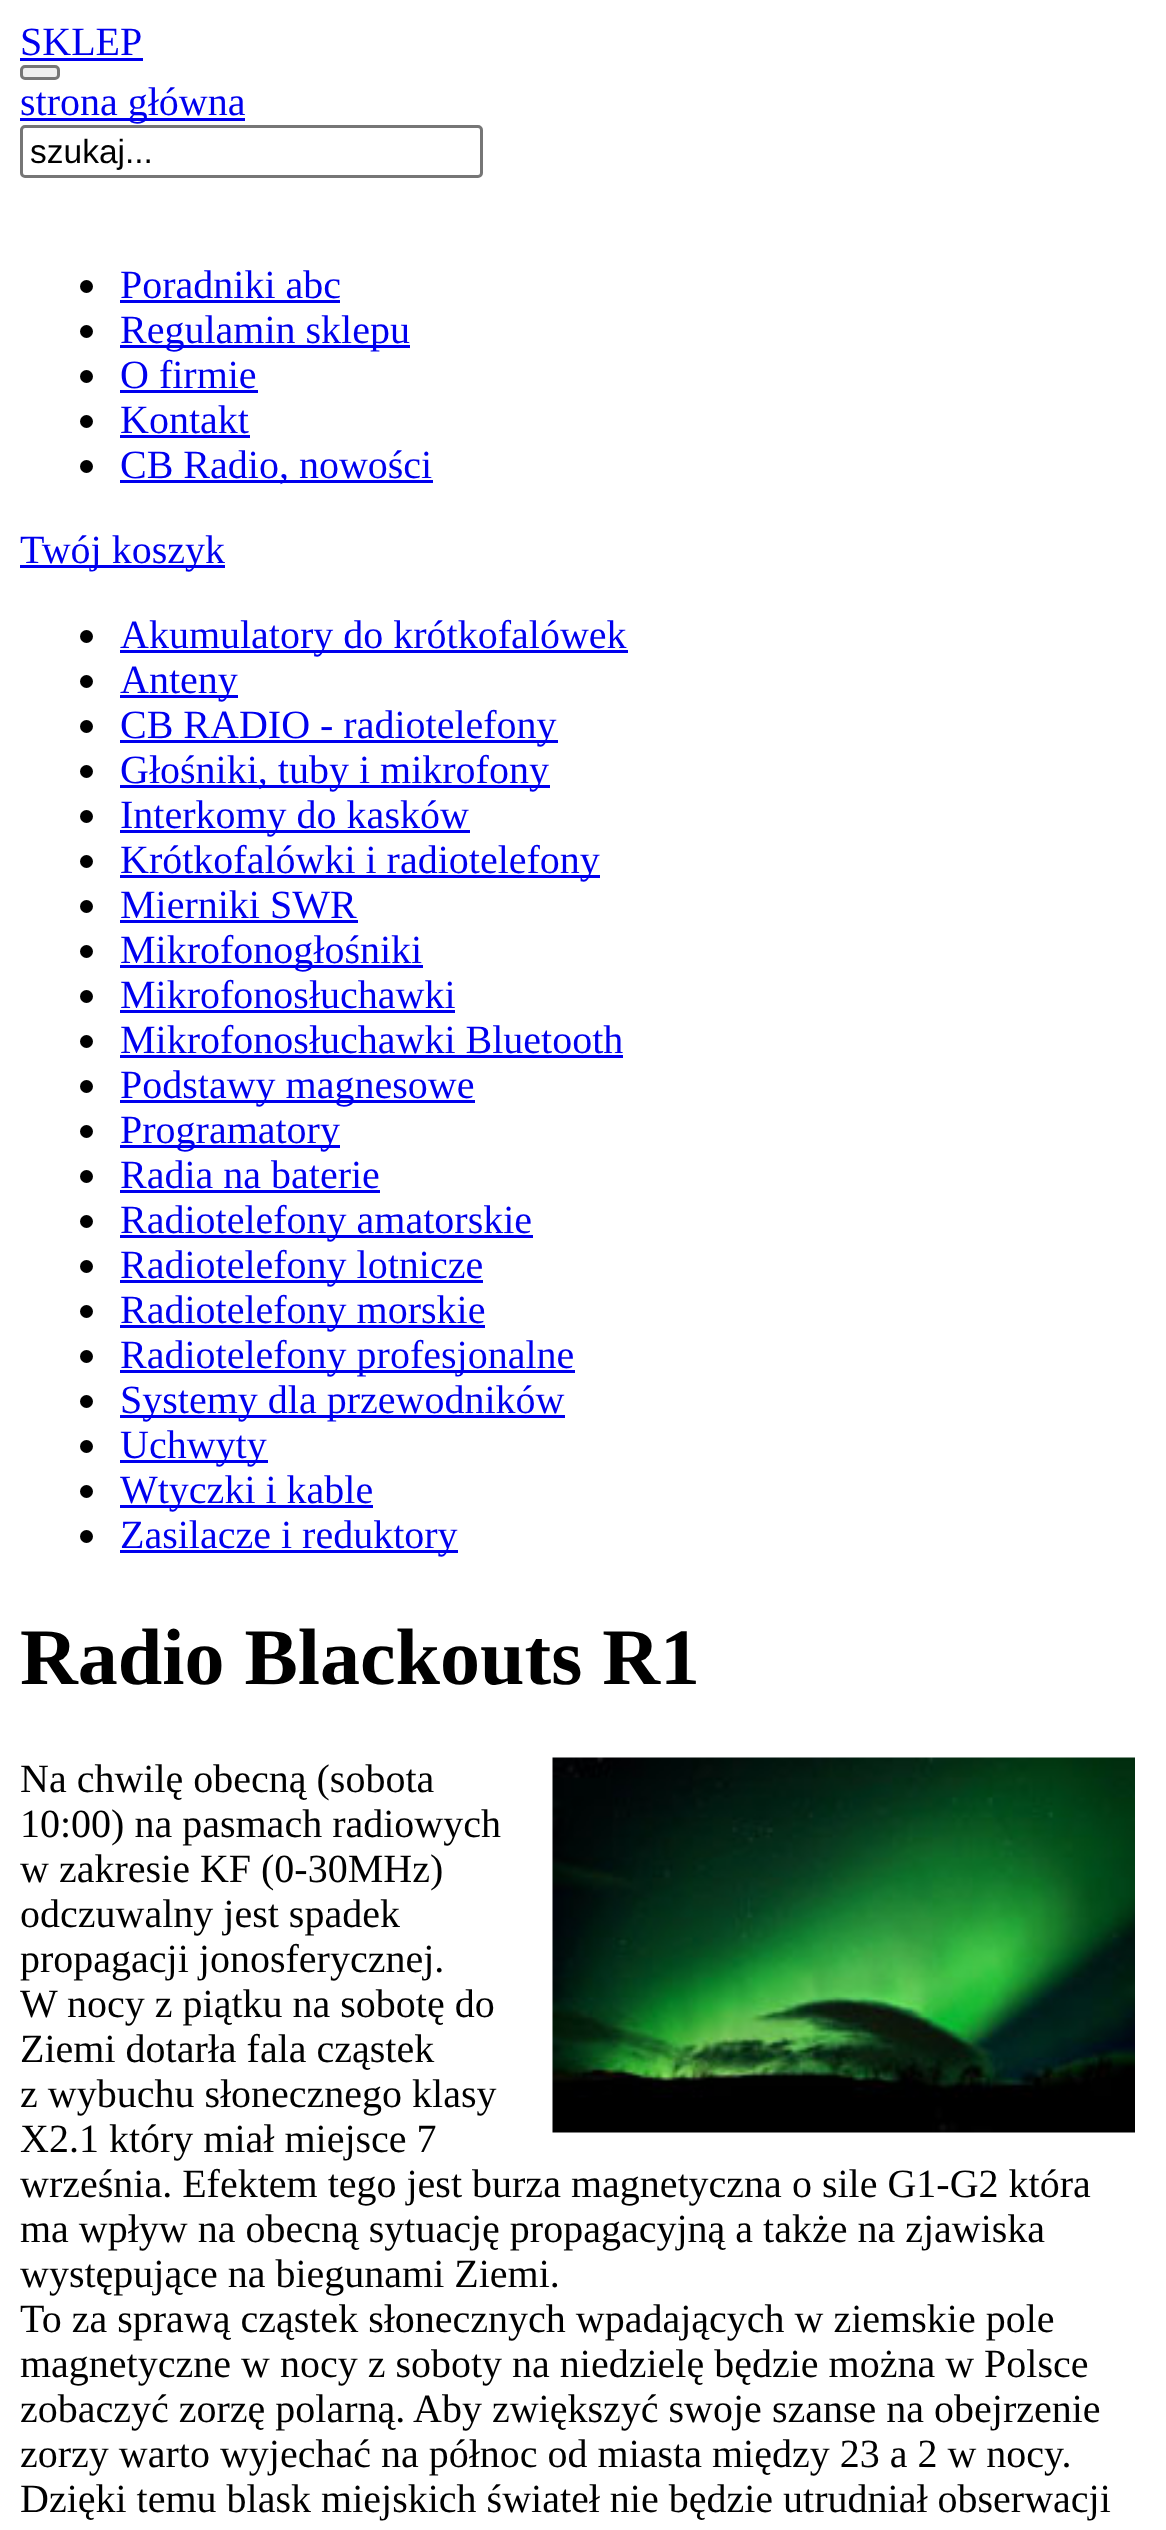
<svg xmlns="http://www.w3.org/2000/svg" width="1166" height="2530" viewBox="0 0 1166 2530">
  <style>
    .t1 { font: 40px Liberation Serif; fill: #00e; }
    .t2 { font: 33.5px Liberation Sans; fill: #000; }
    .t3 { font: bold 80px Liberation Serif; fill: #000; }
    .t4 { font: 40px Liberation Serif; fill: #000; }
  </style>
  <rect width="100%" height="100%" fill="#fff"/>
  <text x="20" y="55" class="t1">SKLEP</text>
  <rect x="20" y="58" width="123" height="3" fill="#00e"/>
  <rect x="21.5" y="66.5" width="37" height="12" rx="3.5" fill="#efefef" stroke="#767676" stroke-width="3"/>
  <rect x="20" y="118" width="225" height="3" fill="#00e"/>
  <text x="20" y="115" class="t1">strona główna</text>
  <rect x="21.5" y="126.5" width="460" height="50" rx="3.5" fill="none" stroke="#767676" stroke-width="3"/>
  <text x="30" y="163" class="t2">szukaj...</text>
  <circle cx="86.5" cy="286.5" r="6.5" fill="#000"/>
  <text x="120" y="298" class="t1">Poradniki abc</text>
  <rect x="120" y="300" width="220" height="3" fill="#00e"/>
  <circle cx="86.5" cy="331.5" r="6.5" fill="#000"/>
  <rect x="120" y="345" width="290" height="3" fill="#00e"/>
  <text x="120" y="343" class="t1">Regulamin sklepu</text>
  <circle cx="86.5" cy="376.5" r="6.5" fill="#000"/>
  <text x="120" y="388" class="t1">O firmie</text>
  <rect x="120" y="390" width="138" height="3" fill="#00e"/>
  <circle cx="86.5" cy="421.5" r="6.5" fill="#000"/>
  <text x="120" y="433" class="t1">Kontakt</text>
  <rect x="120" y="435" width="130" height="3" fill="#00e"/>
  <circle cx="86.5" cy="466.5" r="6.5" fill="#000"/>
  <rect x="120" y="480" width="313" height="3" fill="#00e"/>
  <text x="120" y="478" class="t1">CB Radio, nowości</text>
  <rect x="20" y="565" width="205" height="3" fill="#00e"/>
  <text x="20" y="563" class="t1">Twój koszyk</text>
  <circle cx="86.5" cy="636.5" r="6.5" fill="#000"/>
  <rect x="120" y="650" width="508" height="3" fill="#00e"/>
  <text x="120" y="648" class="t1">Akumulatory do krótkofalówek</text>
  <circle cx="86.5" cy="681.5" r="6.5" fill="#000"/>
  <rect x="120" y="695" width="118" height="3" fill="#00e"/>
  <text x="120" y="693" class="t1">Anteny</text>
  <circle cx="86.5" cy="726.5" r="6.5" fill="#000"/>
  <rect x="120" y="740" width="438" height="3" fill="#00e"/>
  <text x="120" y="738" class="t1">CB RADIO - radiotelefony</text>
  <circle cx="86.5" cy="771.5" r="6.5" fill="#000"/>
  <rect x="120" y="785" width="430" height="3" fill="#00e"/>
  <text x="120" y="783" class="t1">Głośniki, tuby i mikrofony</text>
  <circle cx="86.5" cy="816.5" r="6.5" fill="#000"/>
  <rect x="120" y="830" width="350" height="3" fill="#00e"/>
  <text x="120" y="828" class="t1">Interkomy do kasków</text>
  <circle cx="86.5" cy="861.5" r="6.5" fill="#000"/>
  <rect x="120" y="875" width="480" height="3" fill="#00e"/>
  <text x="120" y="873" class="t1">Krótkofalówki i radiotelefony</text>
  <circle cx="86.5" cy="906.5" r="6.5" fill="#000"/>
  <text x="120" y="918" class="t1">Mierniki SWR</text>
  <rect x="120" y="920" width="238" height="3" fill="#00e"/>
  <circle cx="86.5" cy="951.5" r="6.5" fill="#000"/>
  <rect x="120" y="965" width="303" height="3" fill="#00e"/>
  <text x="120" y="963" class="t1">Mikrofonogłośniki</text>
  <circle cx="86.5" cy="996.5" r="6.5" fill="#000"/>
  <text x="120" y="1008" class="t1">Mikrofonosłuchawki</text>
  <rect x="120" y="1010" width="335" height="3" fill="#00e"/>
  <circle cx="86.5" cy="1041.5" r="6.5" fill="#000"/>
  <text x="120" y="1053" class="t1">Mikrofonosłuchawki Bluetooth</text>
  <rect x="120" y="1055" width="503" height="3" fill="#00e"/>
  <circle cx="86.5" cy="1086.5" r="6.5" fill="#000"/>
  <rect x="120" y="1100" width="355" height="3" fill="#00e"/>
  <text x="120" y="1098" class="t1">Podstawy magnesowe</text>
  <circle cx="86.5" cy="1131.5" r="6.5" fill="#000"/>
  <rect x="120" y="1145" width="220" height="3" fill="#00e"/>
  <text x="120" y="1143" class="t1">Programatory</text>
  <circle cx="86.5" cy="1176.5" r="6.5" fill="#000"/>
  <text x="120" y="1188" class="t1">Radia na baterie</text>
  <rect x="120" y="1190" width="260" height="3" fill="#00e"/>
  <circle cx="86.5" cy="1221.5" r="6.5" fill="#000"/>
  <rect x="120" y="1235" width="413" height="3" fill="#00e"/>
  <text x="120" y="1233" class="t1">Radiotelefony amatorskie</text>
  <circle cx="86.5" cy="1266.5" r="6.5" fill="#000"/>
  <rect x="120" y="1280" width="363" height="3" fill="#00e"/>
  <text x="120" y="1278" class="t1">Radiotelefony lotnicze</text>
  <circle cx="86.5" cy="1311.5" r="6.5" fill="#000"/>
  <rect x="120" y="1325" width="365" height="3" fill="#00e"/>
  <text x="120" y="1323" class="t1">Radiotelefony morskie</text>
  <circle cx="86.5" cy="1356.5" r="6.5" fill="#000"/>
  <rect x="120" y="1370" width="455" height="3" fill="#00e"/>
  <text x="120" y="1368" class="t1">Radiotelefony profesjonalne</text>
  <circle cx="86.5" cy="1401.5" r="6.5" fill="#000"/>
  <rect x="120" y="1415" width="445" height="3" fill="#00e"/>
  <text x="120" y="1413" class="t1">Systemy dla przewodników</text>
  <circle cx="86.5" cy="1446.5" r="6.5" fill="#000"/>
  <rect x="120" y="1460" width="148" height="3" fill="#00e"/>
  <text x="120" y="1458" class="t1">Uchwyty</text>
  <circle cx="86.5" cy="1491.5" r="6.5" fill="#000"/>
  <rect x="120" y="1505" width="253" height="3" fill="#00e"/>
  <text x="120" y="1503" class="t1">Wtyczki i kable</text>
  <circle cx="86.5" cy="1536.5" r="6.5" fill="#000"/>
  <rect x="120" y="1550" width="338" height="3" fill="#00e"/>
  <text x="120" y="1548" class="t1">Zasilacze i reduktory</text>
  <text x="20" y="1684" class="t3">Radio Blackouts R1</text>
  <text x="20" y="1792" class="t4">Na chwilę obecną (sobota</text>
  <image x="552" y="1757" width="583" height="376" href="images/1.png"/>
  <text x="20" y="1837" class="t4">10:00) na pasmach radiowych</text>
  <text x="20" y="1882" class="t4">w zakresie KF (0-30MHz)</text>
  <text x="20" y="1927" class="t4">odczuwalny jest spadek</text>
  <text x="20" y="1972" class="t4">propagacji jonosferycznej.</text>
  <text x="20" y="2017" class="t4">W nocy z piątku na sobotę do</text>
  <text x="20" y="2062" class="t4">Ziemi dotarła fala cząstek</text>
  <text x="20" y="2107" class="t4">z wybuchu słonecznego klasy</text>
  <text x="20" y="2152" class="t4">X2.1 który miał miejsce 7</text>
  <text x="20" y="2197" class="t4">września. Efektem tego jest burza magnetyczna o sile G1-G2 która</text>
  <text x="20" y="2242" class="t4">ma wpływ na obecną sytuację propagacyjną a także na zjawiska</text>
  <text x="20" y="2287" class="t4">występujące na biegunami Ziemi.</text>
  <text x="20" y="2332" class="t4">To za sprawą cząstek słonecznych wpadających w ziemskie pole</text>
  <text x="20" y="2377" class="t4">magnetyczne w nocy z soboty na niedzielę będzie można w Polsce</text>
  <text x="20" y="2422" class="t4">zobaczyć zorzę polarną. Aby zwiększyć swoje szanse na obejrzenie</text>
  <text x="20" y="2467" class="t4">zorzy warto wyjechać na północ od miasta między 23 a 2 w nocy.</text>
  <text x="20" y="2512" class="t4">Dzięki temu blask miejskich świateł nie będzie utrudniał obserwacji</text>
</svg>
